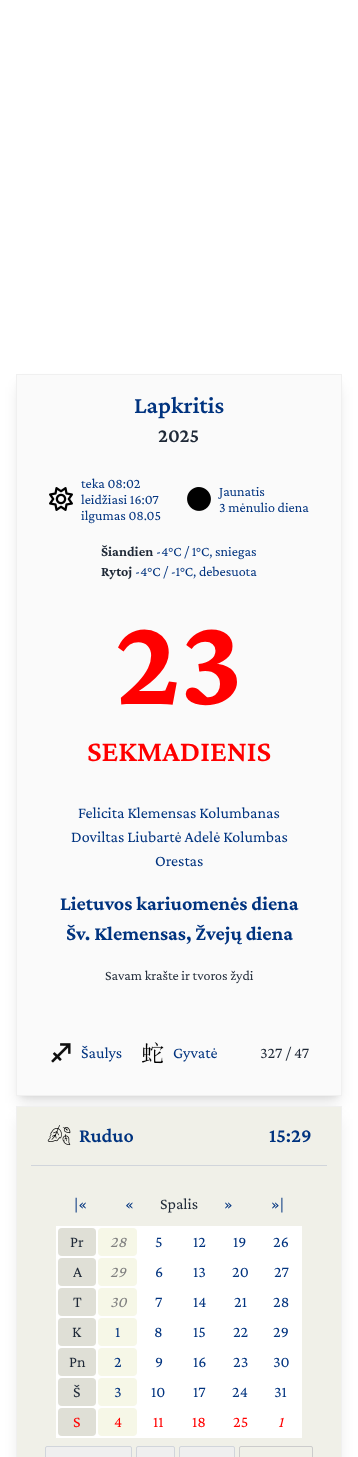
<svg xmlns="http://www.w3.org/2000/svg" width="358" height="1457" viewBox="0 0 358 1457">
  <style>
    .t1 { font: 600 24px Crimson Pro; fill: #00337f; }
    .t2 { font: 600 20px Crimson Pro; fill: #1f2937; }
    .t3 { font: 14px Crimson Pro; fill: #00337f; }
    .t4 { font: bold 14px Crimson Pro; fill: #1f2937; }
    .t5 { font: bold 128px Crimson Pro; fill: #f00; }
    .t6 { font: 600 30px Crimson Pro; fill: #f00; }
    .t7 { font: 16px Crimson Pro; fill: #00337f; }
    .t8 { font: bold 20px Crimson Pro; fill: #00337f; }
    .t9 { font: 14px Crimson Pro; fill: #1f2937; }
    .t10 { font: 16px Crimson Pro; fill: #1f2937; }
    .t11 { font: 600 20px Crimson Pro; fill: #00337f; }
    .t12 { font: italic 16px Crimson Pro; fill: #808080; }
    .t13 { font: 16px Crimson Pro; fill: #f00; }
    .t14 { font: italic 16px Crimson Pro; fill: #f00; }
  </style>
  <rect width="100%" height="100%" fill="#fff"/>
  <rect x="20" y="382" width="318" height="714" fill="#0000001a" filter="blur(3px)"/>
  <rect x="19" y="387" width="320" height="716" fill="#0000001a" filter="blur(7.5px)"/>
  <rect x="16.5" y="374.5" width="325" height="721" fill="#fafafa" stroke="#f0f0f0"/>
  <text x="134" y="413" class="t1">Lapkritis</text>
  <text x="158" y="442" class="t2">2025</text>
  <image x="49" y="487" width="24" height="24" href="images/1.png"/>
  <text x="81" y="488" class="t3">teka 08:02</text>
  <text x="81" y="504" class="t3">leidžiasi 16:07</text>
  <text x="81" y="520" class="t3">ilgumas 08.05</text>
  <image x="187" y="487" width="24" height="24" href="images/2.png"/>
  <text x="219" y="496" class="t3">Jaunatis</text>
  <text x="219" y="512" class="t3">3 mėnulio diena</text>
  <text x="101" y="556" class="t4">Šiandien</text>
  <text x="156" y="556" class="t3">-4°C / 1°C, sniegas</text>
  <text x="101" y="576" class="t4">Rytoj</text>
  <text x="135" y="576" class="t3">-4°C / -1°C, debesuota</text>
  <text x="115" y="704" class="t5">23</text>
  <text x="87" y="761" class="t6">SEKMADIENIS</text>
  <text x="78" y="818" class="t7">Felicita Klemensas Kolumbanas</text>
  <text x="71" y="842" class="t7">Doviltas Liubartė Adelė Kolumbas</text>
  <text x="155" y="866" class="t7">Orestas</text>
  <text x="60" y="910" class="t8">Lietuvos kariuomenės diena</text>
  <text x="66" y="940" class="t8">Šv. Klemensas, Žvejų diena</text>
  <text x="105" y="980" class="t9">Savam krašte ir tvoros žydi</text>
  <image x="51" y="1043" width="20" height="20" href="images/3.png"/>
  <text x="81" y="1058" class="t7">Šaulys</text>
  <image x="142" y="1042" width="22" height="22" href="images/4.png"/>
  <text x="173" y="1058" class="t7">Gyvatė</text>
  <text x="260" y="1058" class="t10">327 / 47</text>
  <rect x="19" y="1119" width="320" height="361" fill="#0000001a" filter="blur(7.5px)"/>
  <rect x="16.5" y="1106.5" width="325" height="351" fill="#f0f0e8" stroke="#f0f0f0"/>
  <image x="47" y="1125" width="24" height="21" href="images/5.png"/>
  <text x="79" y="1142" class="t11">Ruduo</text>
  <text x="269" y="1142" class="t11">15:29</text>
  <rect x="31" y="1165" width="296" height="1" fill="#d1d5db"/>
  <text x="74" y="1209" class="t7">|«</text>
  <text x="125" y="1209" class="t7">«</text>
  <text x="160" y="1209" class="t10">Spalis</text>
  <text x="224" y="1209" class="t7">»</text>
  <text x="271" y="1209" class="t7">»|</text>
  <rect x="56" y="1226" width="246" height="212" fill="#fff"/>
  <rect x="58" y="1228" width="38" height="28" rx="4" fill="#dfdfd6"/>
  <text x="70" y="1247" class="t10">Pr</text>
  <rect x="98" y="1228" width="39" height="28" rx="4" fill="#f6f7e7"/>
  <text x="110" y="1247" class="t12">28</text>
  <text x="155" y="1247" class="t7">5</text>
  <text x="193" y="1247" class="t7">12</text>
  <text x="233" y="1247" class="t7">19</text>
  <text x="273" y="1247" class="t7">26</text>
  <rect x="58" y="1258" width="38" height="28" rx="4" fill="#dfdfd6"/>
  <text x="73" y="1277" class="t10">A</text>
  <rect x="98" y="1258" width="39" height="28" rx="4" fill="#f6f7e7"/>
  <text x="110" y="1277" class="t12">29</text>
  <text x="155" y="1277" class="t7">6</text>
  <text x="193" y="1277" class="t7">13</text>
  <text x="232" y="1277" class="t7">20</text>
  <text x="274" y="1277" class="t7">27</text>
  <rect x="58" y="1288" width="38" height="28" rx="4" fill="#dfdfd6"/>
  <text x="73" y="1307" class="t10">T</text>
  <rect x="98" y="1288" width="39" height="28" rx="4" fill="#f6f7e7"/>
  <text x="110" y="1307" class="t12">30</text>
  <text x="155" y="1307" class="t7">7</text>
  <text x="193" y="1307" class="t7">14</text>
  <text x="234" y="1307" class="t7">21</text>
  <text x="273" y="1307" class="t7">28</text>
  <rect x="58" y="1318" width="38" height="28" rx="4" fill="#dfdfd6"/>
  <text x="72" y="1337" class="t10">K</text>
  <rect x="98" y="1318" width="39" height="28" rx="4" fill="#f6f7e7"/>
  <text x="115" y="1337" class="t7">1</text>
  <text x="154" y="1337" class="t7">8</text>
  <text x="193" y="1337" class="t7">15</text>
  <text x="233" y="1337" class="t7">22</text>
  <text x="273" y="1337" class="t7">29</text>
  <rect x="58" y="1348" width="38" height="28" rx="4" fill="#dfdfd6"/>
  <text x="69" y="1367" class="t10">Pn</text>
  <rect x="98" y="1348" width="39" height="28" rx="4" fill="#f6f7e7"/>
  <text x="114" y="1367" class="t7">2</text>
  <text x="155" y="1367" class="t7">9</text>
  <text x="193" y="1367" class="t7">16</text>
  <text x="233" y="1367" class="t7">23</text>
  <text x="273" y="1367" class="t7">30</text>
  <rect x="58" y="1378" width="38" height="28" rx="4" fill="#dfdfd6"/>
  <text x="73" y="1397" class="t10">Š</text>
  <rect x="98" y="1378" width="39" height="28" rx="4" fill="#f6f7e7"/>
  <text x="114" y="1397" class="t7">3</text>
  <text x="151" y="1397" class="t7">10</text>
  <text x="193" y="1397" class="t7">17</text>
  <text x="232" y="1397" class="t7">24</text>
  <text x="274" y="1397" class="t7">31</text>
  <rect x="58" y="1408" width="38" height="28" rx="4" fill="#dfdfd6"/>
  <text x="73" y="1427" class="t13">S</text>
  <rect x="98" y="1408" width="39" height="28" rx="4" fill="#f6f7e7"/>
  <text x="114" y="1427" class="t13">4</text>
  <text x="153" y="1427" class="t13">11</text>
  <text x="192" y="1427" class="t13">18</text>
  <text x="233" y="1427" class="t13">25</text>
  <text x="278" y="1427" class="t14">1</text>
  <rect x="45.5" y="1446.5" width="86" height="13" rx="1.5" fill="#efefef" stroke="#d1d5db"/>
  <rect x="136.5" y="1446.5" width="38" height="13" rx="1.5" fill="#efefef" stroke="#d1d5db"/>
  <rect x="179.5" y="1446.5" width="55" height="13" rx="1.5" fill="#efefef" stroke="#d1d5db"/>
  <rect x="239.5" y="1446.5" width="73" height="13" rx="1.5" fill="none" stroke="#ccc"/>
</svg>
